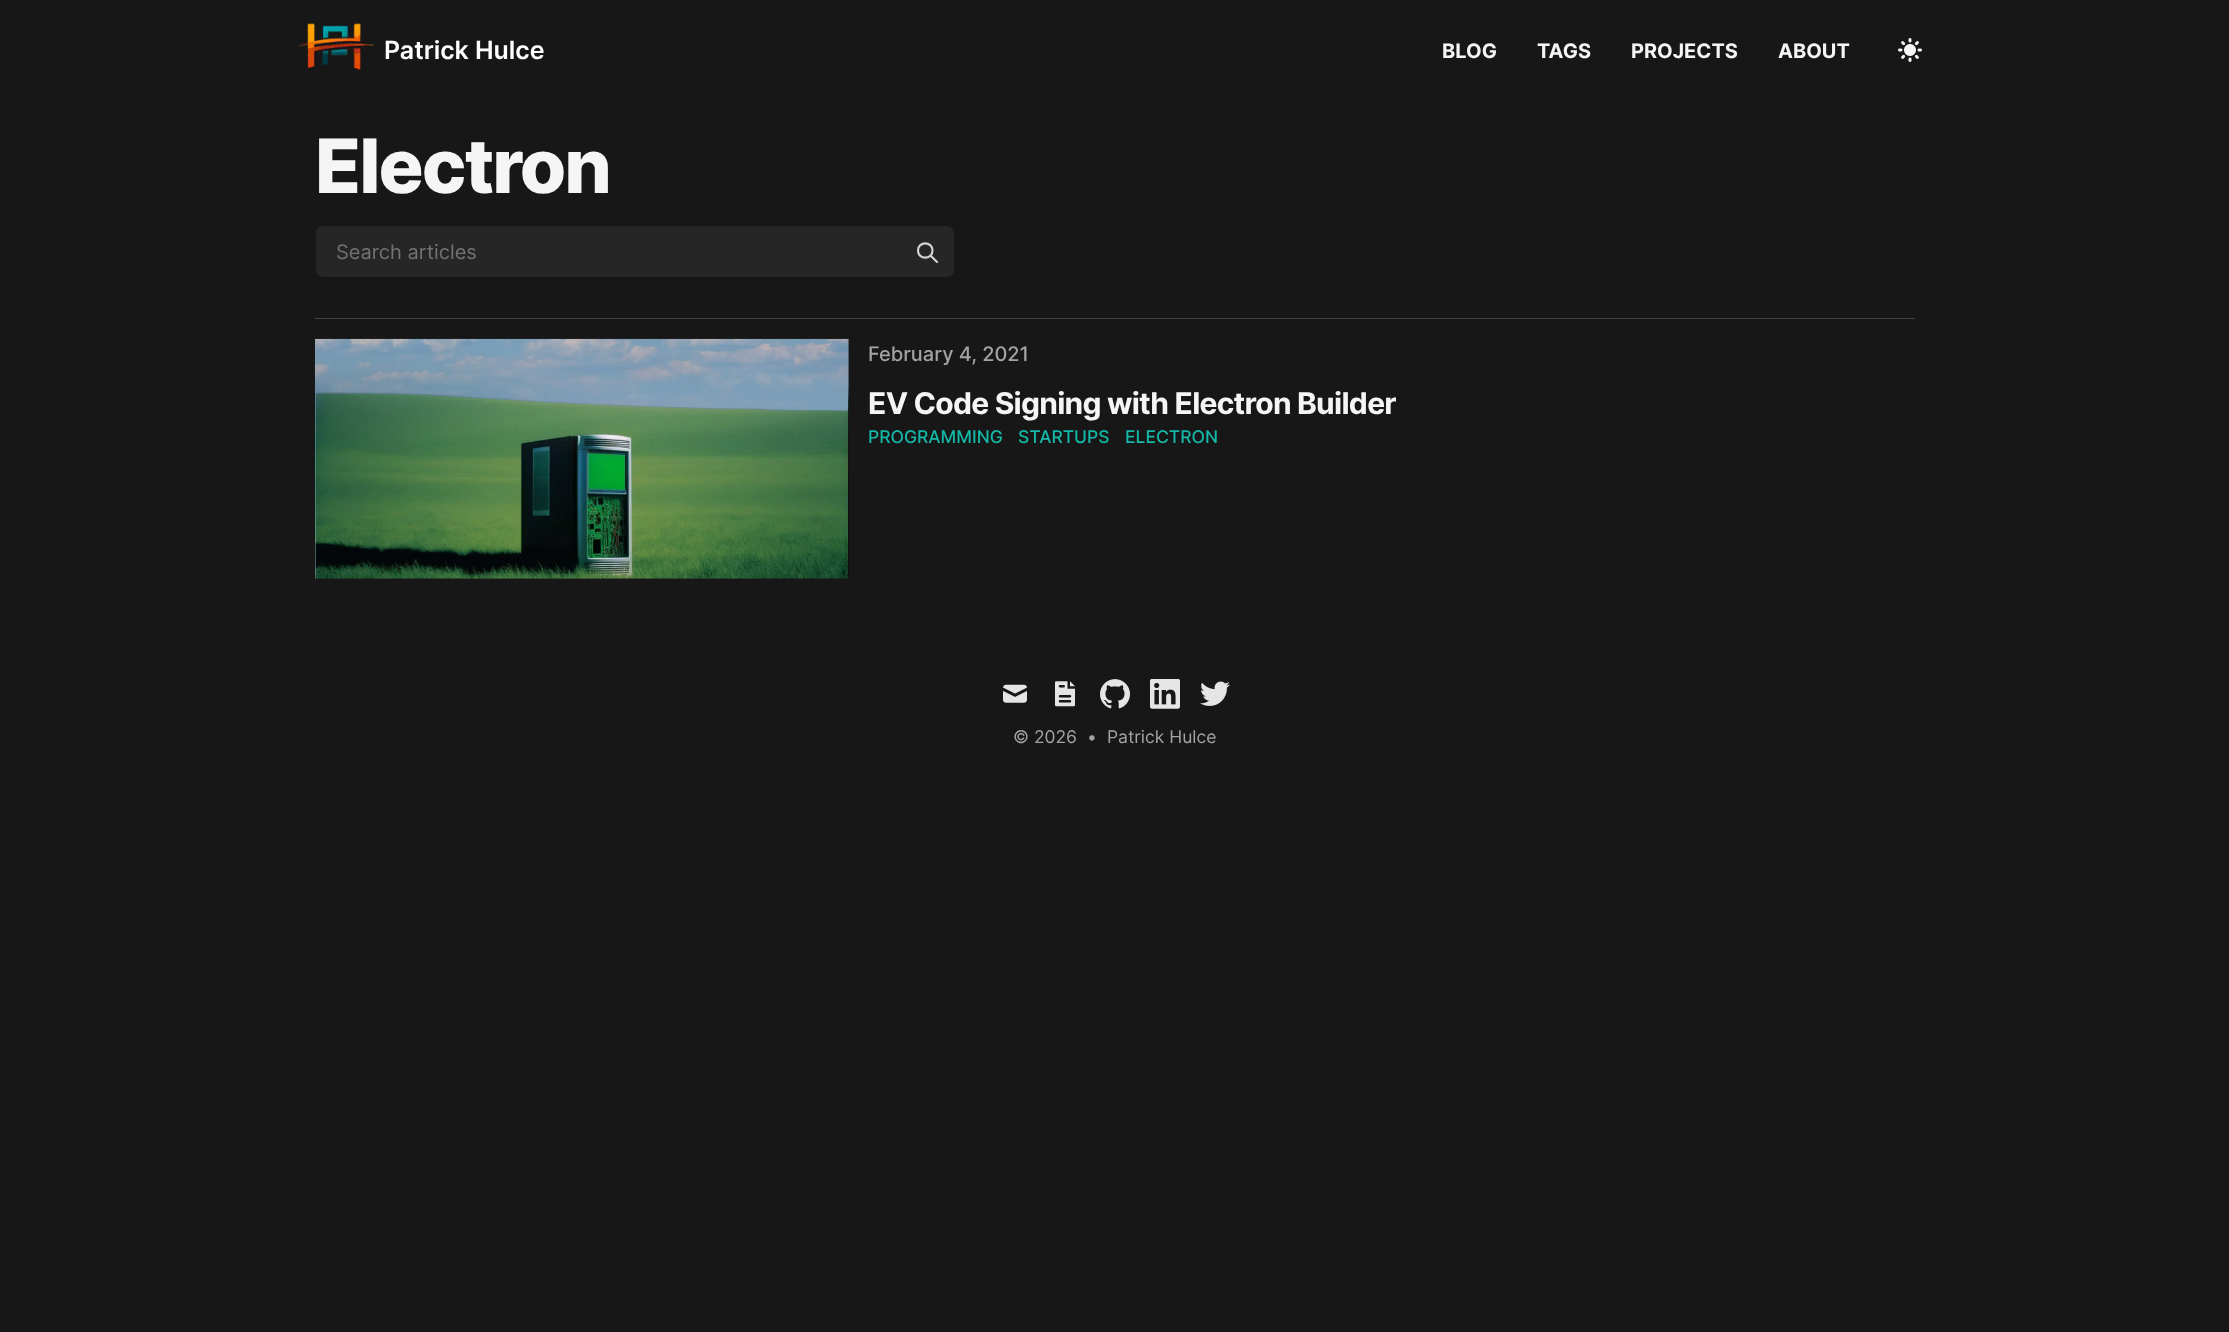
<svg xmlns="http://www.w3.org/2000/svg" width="2229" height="1332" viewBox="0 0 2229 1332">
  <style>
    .t1 { font: italic 600 25px Inter; fill: #fff; }
    .t2 { font: italic bold 20px Inter; fill: #f5f5f5; }
    .t3 { font: italic 800 75px Inter; letter-spacing: -2px; fill: #f5f5f5; }
    .t4 { font: italic 20px Inter; fill: #737373; }
    .t5 { font: italic 500 20px Inter; fill: #a3a3a3; }
    .t6 { font: italic bold 30px Inter; letter-spacing: -0.75px; fill: #f5f5f5; }
    .t7 { font: italic 500 17.5px Inter; fill: #14b8a6; }
    .t8 { font: italic 17.5px Inter; fill: #a3a3a3; }
  </style>
  <rect width="100%" height="100%" fill="#171717"/>
  <image x="298" y="23" width="76" height="47" href="images/1.png"/>
  <text x="384" y="59" class="t1">Patrick Hulce</text>
  <text x="1442" y="58" class="t2">BLOG</text>
  <text x="1537" y="58" class="t2">TAGS</text>
  <text x="1631" y="58" class="t2">PROJECTS</text>
  <text x="1778" y="58" class="t2">ABOUT</text>
  <image x="1898" y="38" width="24" height="24" href="images/2.png"/>
  <text x="315" y="193" class="t3">Electron</text>
  <rect x="315.5" y="225.5" width="639" height="52" rx="7.5" fill="#262626" stroke="#171717"/>
  <text x="336" y="259" class="t4">Search articles</text>
  <path d="M937 262L930.5 255.5M932.5 250.5C932.5 260 918 260 918 250.5C918 241 932.5 241 932.5 250.5Z" fill="none" stroke="#d4d4d4" stroke-width="2.1" stroke-linecap="round" stroke-linejoin="round"/>
  <rect x="315" y="318" width="1600" height="1" fill="#404040"/>
  <image x="315" y="338" width="534" height="241" href="images/3.png"/>
  <text x="868" y="361" class="t5">February 4, 2021</text>
  <text x="868" y="414" class="t6">EV Code Signing with Electron Builder</text>
  <text x="868" y="443" class="t7">PROGRAMMING</text>
  <text x="1018" y="443" class="t7">STARTUPS</text>
  <text x="1125" y="443" class="t7">ELECTRON</text>
  <image x="1003" y="684" width="24" height="19" href="images/4.png"/>
  <image x="1055" y="681" width="20" height="26" href="images/5.png"/>
  <image x="1100" y="679" width="30" height="30" href="images/6.png"/>
  <image x="1150" y="679" width="30" height="30" href="images/7.png"/>
  <image x="1200" y="681" width="30" height="25" href="images/8.png"/>
  <text x="1013" y="743" class="t8">© 2026</text>
  <text x="1087" y="743" class="t8">•</text>
  <text x="1107" y="743" class="t8">Patrick Hulce</text>
</svg>
